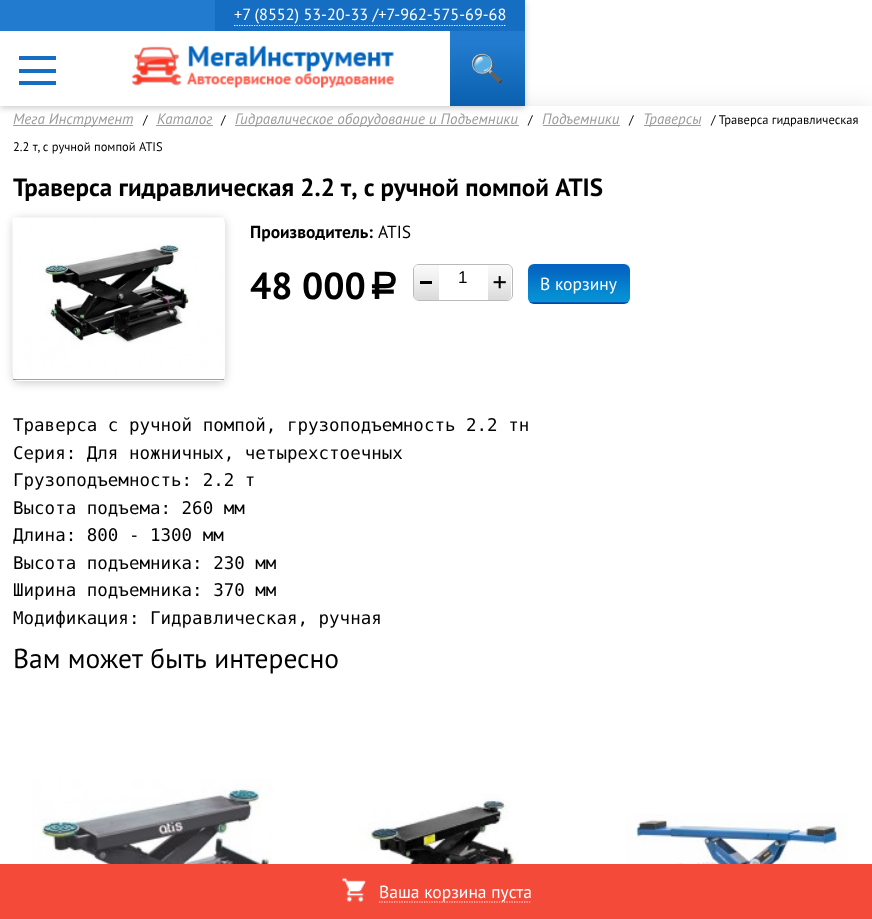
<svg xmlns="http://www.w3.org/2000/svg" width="872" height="919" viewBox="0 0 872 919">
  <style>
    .t1 { font: 16.25px PT Sans; fill: #fff; }
    .t2 { font: 27.5px Noto Color Emoji; fill: #fff; }
    .t3 { font: italic 15px PT Sans; fill: #9c9c9c; }
    .t4 { font: 12.5px PT Sans; fill: #000; }
    .t5 { font: bold 25px PT Sans; fill: #000; }
    .t6 { font: bold 17.5px PT Sans; fill: #000; }
    .t7 { font: 17.5px PT Sans; fill: #000; }
    .t8 { font: bold 37.5px PT Sans; fill: #000; }
    .t9 { font: bold 37.5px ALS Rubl; fill: #000; }
    .t10 { font: 17px Liberation Sans; fill: #000; }
    .t11 { font: 17.5px PT Sans; fill: #fff; }
    .t12 { font: 17.5px DejaVu Sans Mono; fill: #000; }
    .t13 { font: 27.5px PT Sans; fill: #000; }
  </style>
  <defs>
    <linearGradient id="g1" gradientUnits="userSpaceOnUse" x1="488" y1="31" x2="488" y2="106"><stop offset="0.17" stop-color="#227bce"/><stop offset="1" stop-color="#0a60af"/></linearGradient>
    <clipPath id="clip1"><path d="M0 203H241V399H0ZM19 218H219C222.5 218 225 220.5 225 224V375C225 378.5 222.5 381 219 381H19C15.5 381 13 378.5 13 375V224C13 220.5 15.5 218 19 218Z" clip-rule="evenodd"/></clipPath>
    <linearGradient id="g2" gradientUnits="userSpaceOnUse" x1="426" y1="265" x2="426" y2="300"><stop offset="0" stop-color="#fafafa"/><stop offset="0.43" stop-color="#efefef"/><stop offset="0.93" stop-color="#dcdcdc"/><stop offset="1" stop-color="#dbdbdb"/></linearGradient>
    <linearGradient id="g3" gradientUnits="userSpaceOnUse" x1="499" y1="265" x2="499" y2="300"><stop offset="0" stop-color="#fafafa"/><stop offset="0.43" stop-color="#efefef"/><stop offset="0.93" stop-color="#dcdcdc"/><stop offset="1" stop-color="#dbdbdb"/></linearGradient>
    <linearGradient id="g4" gradientUnits="userSpaceOnUse" x1="579" y1="264" x2="579" y2="304"><stop offset="0" stop-color="#0462c1"/><stop offset="0.23" stop-color="#046bc4"/><stop offset="0.74" stop-color="#068bd2"/><stop offset="0.94" stop-color="#0693d5"/><stop offset="0.97" stop-color="#0346a9"/><stop offset="1" stop-color="#0346a9"/></linearGradient>
  </defs>
  <rect width="100%" height="100%" fill="#fff"/>
  <rect x="0" y="108" width="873" height="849" fill="#0000001a" filter="blur(12.5px)"/>
  <rect x="0" y="106" width="872" height="758" fill="#fff"/>
  <rect x="0" y="1" width="525" height="107" fill="#00000033" filter="blur(3px)"/>
  <rect x="0" y="31" width="450" height="75" fill="#fff"/>
  <rect x="0" y="0" width="215" height="31" fill="#227bce"/>
  <rect x="215" y="0" width="310" height="31" fill="#156ec1"/>
  <text x="234" y="20" class="t1">+7 (8552) 53-20-33 /+7-962-575-69-68</text>
  <path d="M234 25.5H299" fill="none" stroke="#fff" stroke-width="1.2" stroke-dasharray="1.25 1.25"/>
  <path d="M299 25.5H506" fill="none" stroke="#fff" stroke-width="1.2" stroke-dasharray="1.25 1.25"/>
  <rect x="19" y="56" width="37" height="4" fill="#156ec1"/>
  <rect x="19" y="69" width="37" height="4" fill="#156ec1"/>
  <rect x="19" y="81" width="37" height="4" fill="#156ec1"/>
  <image x="132" y="45" width="262" height="43" href="images/1.png"/>
  <rect x="450" y="31" width="75" height="75" fill="url(#g1)"/>
  <text x="470" y="78" class="t2">🔍</text>
  <rect x="13" y="125" width="120" height="1" fill="#9c9c9c"/>
  <text x="13" y="124" class="t3">Мега Инструмент</text>
  <text x="143" y="124" class="t4">/</text>
  <rect x="156" y="125" width="57" height="1" fill="#9c9c9c"/>
  <text x="157" y="124" class="t3">Каталог</text>
  <text x="221" y="124" class="t4">/</text>
  <rect x="235" y="125" width="284" height="1" fill="#9c9c9c"/>
  <text x="235" y="124" class="t3">Гидравлическое оборудование и Подъемники</text>
  <text x="528" y="124" class="t4">/</text>
  <rect x="543" y="125" width="77" height="1" fill="#9c9c9c"/>
  <text x="542" y="124" class="t3">Подъемники</text>
  <text x="629" y="124" class="t4">/</text>
  <rect x="644" y="125" width="57" height="1" fill="#9c9c9c"/>
  <text x="643" y="124" class="t3">Траверсы</text>
  <text x="711" y="124" class="t4">/ Траверса гидравлическая</text>
  <text x="13" y="151" class="t4">2.2 т, с ручной помпой ATIS</text>
  <text x="13" y="196" class="t5">Траверса гидравлическая 2.2 т, с ручной помпой ATIS</text>
  <g clip-path="url(#clip1)">
    <rect x="13" y="219" width="212" height="164" rx="6" fill="#00000033" filter="blur(5px)"/>
  </g>
  <image x="12" y="217" width="212" height="157" href="images/2.png"/>
  <rect x="13" y="379" width="211" height="1" fill="#0258a280"/>
  <text x="250" y="238" class="t6">Производитель:</text>
  <text x="378" y="238" class="t7">ATIS</text>
  <text x="250" y="299" class="t8">48 000</text>
  <text x="366" y="299" class="t9">a</text>
  <rect x="413.5" y="264.5" width="99" height="36" rx="5.5" fill="none" stroke="#bababa"/>
  <path d="M419 265H439V300H419C416 300 414 298 414 295V270C414 267 416 265 419 265Z" fill="url(#g2)"/>
  <rect x="420" y="281" width="12" height="3" fill="#000"/>
  <text x="458" y="283" class="t10">1</text>
  <path d="M488 265H506C509 265 511 267 511 270V295C511 298 509 300 506 300H488Z" fill="url(#g3)"/>
  <image x="493" y="276" width="13" height="13" href="images/3.png"/>
  <rect x="528" y="264" width="102" height="40" rx="6" fill="url(#g4)"/>
  <text x="540" y="290" class="t11">В корзину</text>
  <text x="13" y="431" class="t12">Траверса с ручной помпой, грузоподъемность 2.2 тн</text>
  <text x="13" y="459" class="t12">Серия: Для ножничных, четырехстоечных</text>
  <text x="13" y="486" class="t12">Грузоподъемность: 2.2 т</text>
  <text x="13" y="514" class="t12">Высота подъема: 260 мм</text>
  <text x="13" y="541" class="t12">Длина: 800 - 1300 мм</text>
  <text x="13" y="569" class="t12">Высота подъемника: 230 мм</text>
  <text x="13" y="596" class="t12">Ширина подъемника: 370 мм</text>
  <text x="13" y="624" class="t12">Модификация: Гидравлическая, ручная</text>
  <text x="13" y="668" class="t13">Вам может быть интересно</text>
  <image x="31" y="779" width="248" height="85" href="images/4.png"/>
  <image x="349" y="794" width="170" height="70" href="images/5.png"/>
  <image x="626" y="814" width="221" height="50" href="images/6.png"/>
  <rect x="0" y="864" width="872" height="55" fill="#f44a39"/>
  <image x="342" y="877" width="24" height="26" href="images/7.png"/>
  <path d="M379 902H531" fill="none" stroke="#fff" stroke-width="1.2" stroke-dasharray="1.25 1.25"/>
  <text x="379" y="898" class="t11">Ваша корзина пуста</text>
</svg>
